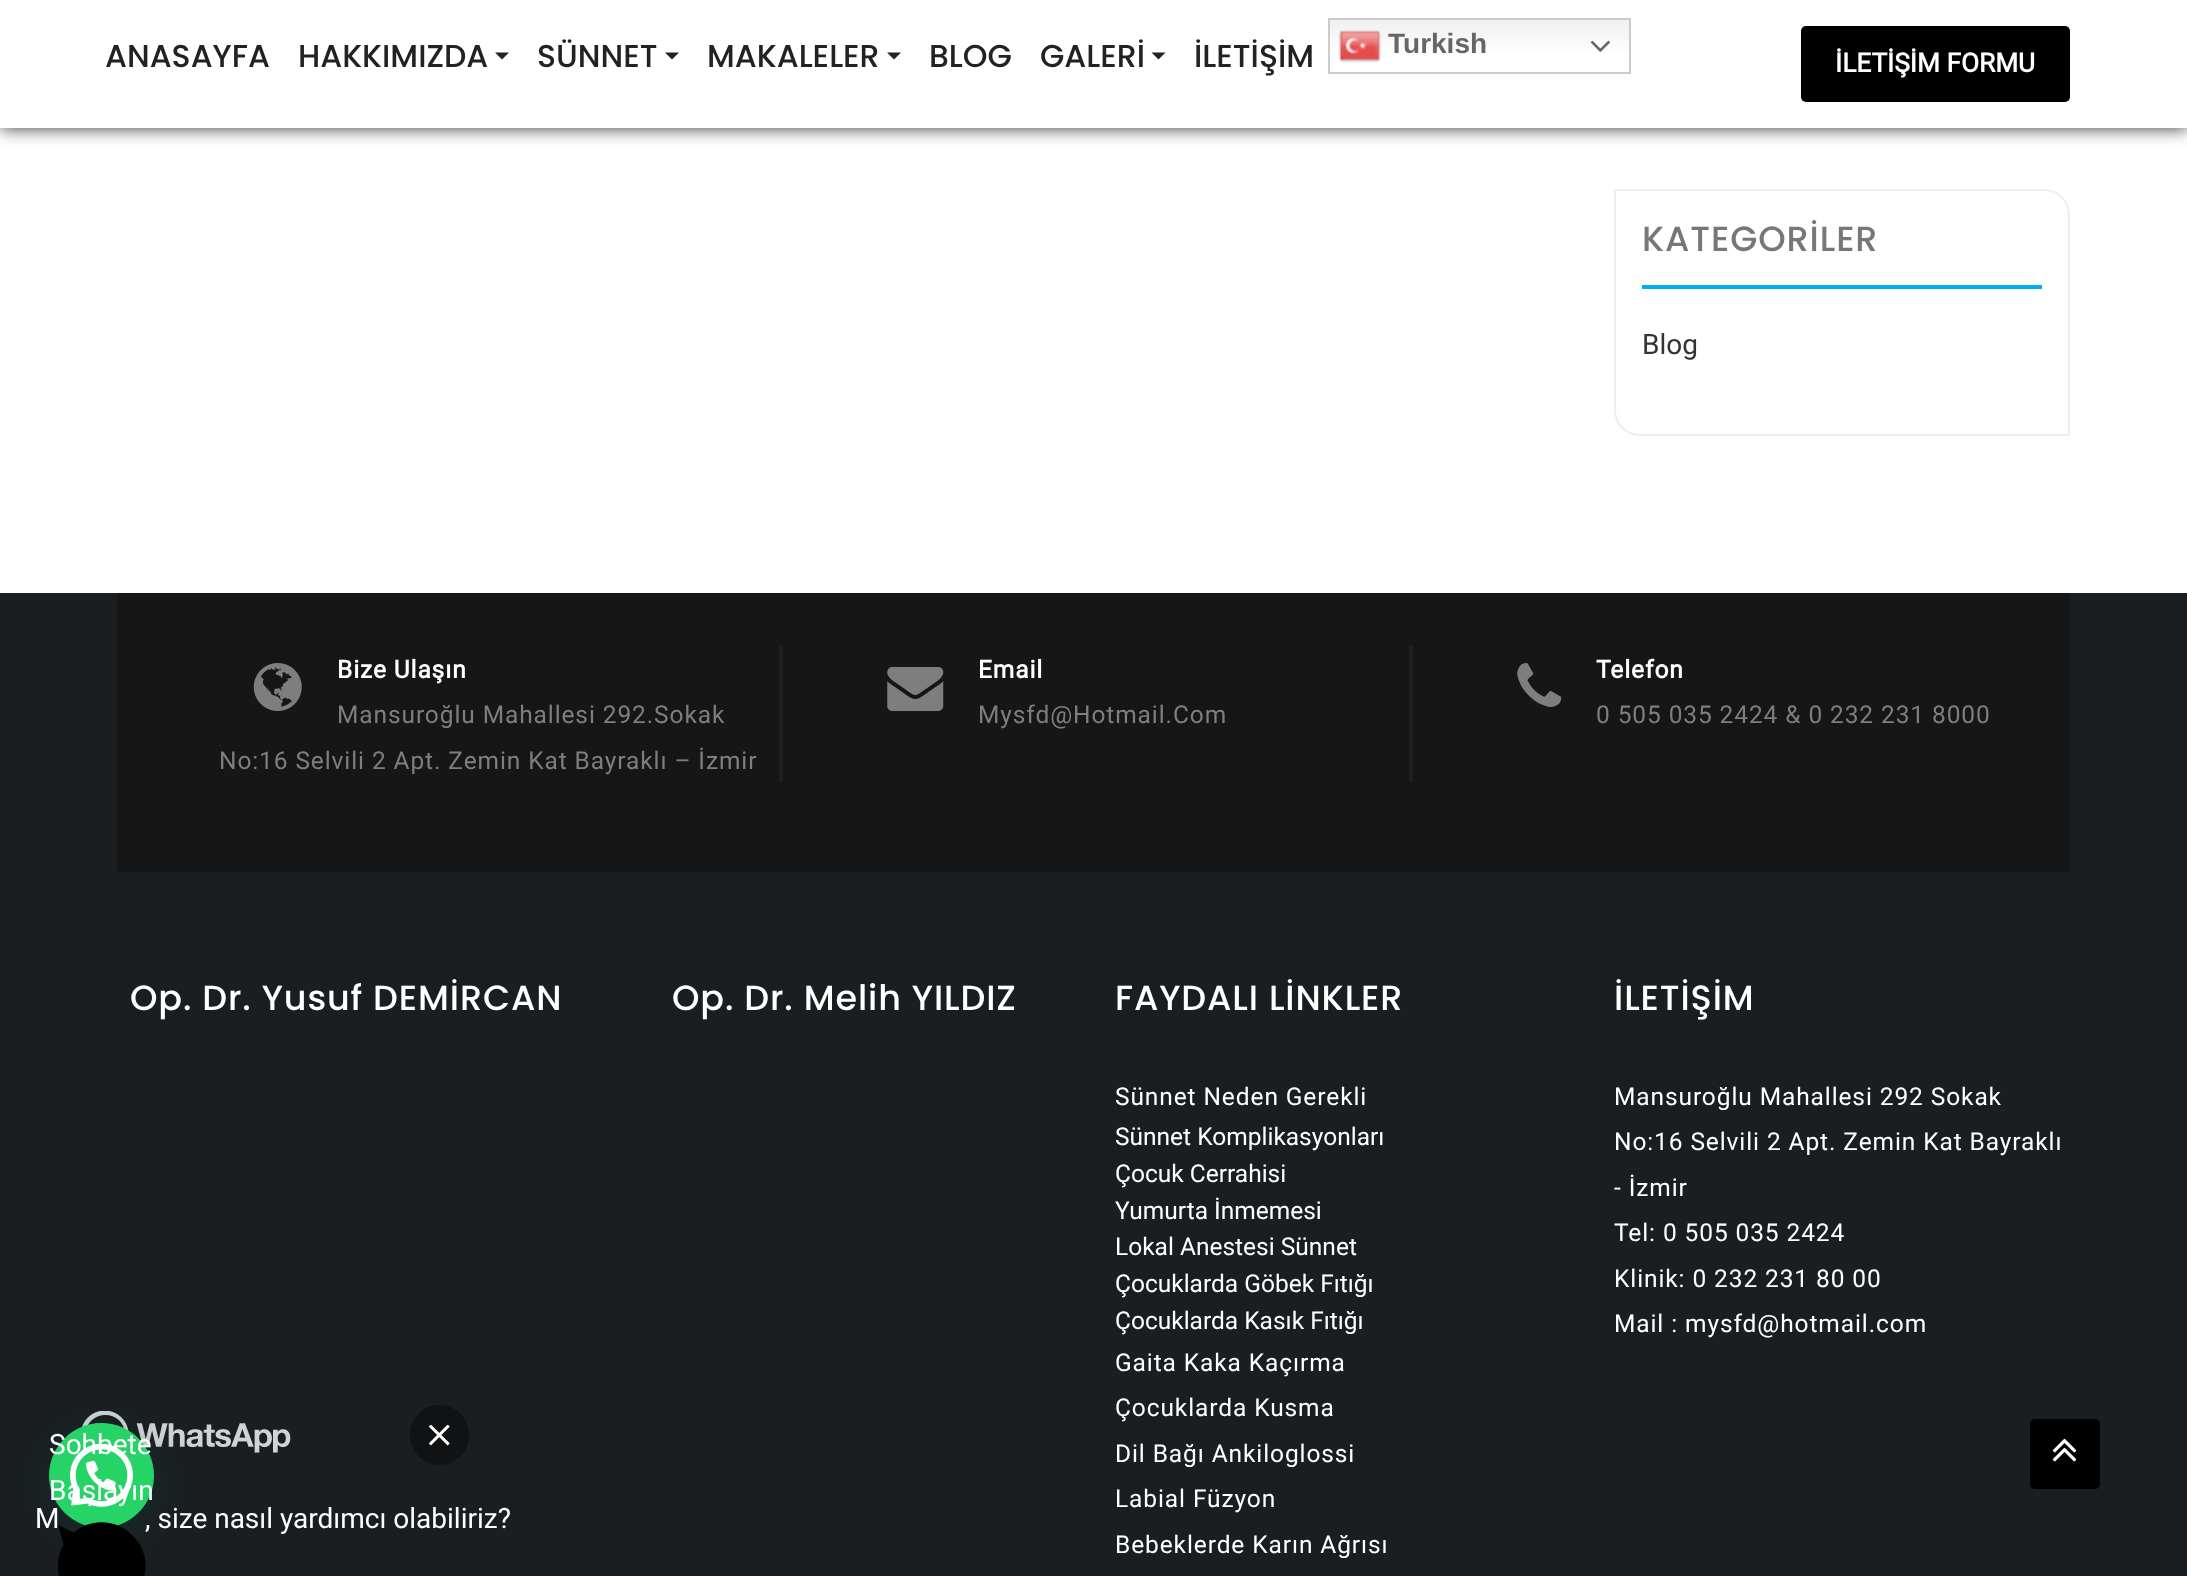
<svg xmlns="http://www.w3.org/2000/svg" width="2187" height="1576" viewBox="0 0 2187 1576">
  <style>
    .t1 { font: 500 31.5px Poppins; fill: #222; }
    .t2 { font: bold 28px Liberation Sans; fill: #666; }
    .t3 { font: bold 26.25px Roboto; fill: #fff; }
    .t4 { font: 500 35px Poppins; letter-spacing: 0.9px; fill: #777; }
    .t5 { font: 28px Roboto; fill: #333; }
    .t6 { font: bold 24.5px Roboto; letter-spacing: 0.9px; fill: #fff; }
    .t7 { font: 24.5px Roboto; letter-spacing: 0.9px; fill: #7e7e7e; }
    .t8 { font: 500 35px Poppins; letter-spacing: 0.9px; fill: #fff; }
    .t9 { font: 24.5px Roboto; letter-spacing: 0.9px; fill: #fff; }
    .t10 { font: 24.5px Roboto; fill: #fff; }
    .t11 { font: 28px Roboto; fill: #fff; }
  </style>
  <defs>
    <linearGradient id="g1" gradientUnits="userSpaceOnUse" x1="1480" y1="17" x2="1480" y2="74"><stop offset="0" stop-color="#efefef"/><stop offset="0.7" stop-color="#fff"/></linearGradient>
  </defs>
  <rect width="100%" height="100%" fill="#fff"/>
  <rect x="0" y="0" width="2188" height="128" fill="#333" filter="blur(9px)"/>
  <rect x="0" y="0" width="2187" height="128" fill="#fff"/>
  <text x="105" y="67" class="t1">ANASAYFA</text>
  <text x="298" y="67" class="t1">HAKKIMIZDA</text>
  <path d="M495 52.5H509L502 59.5Z" fill="#222"/>
  <text x="537" y="67" class="t1">SÜNNET</text>
  <path d="M665 52.5H679L672 59.5Z" fill="#222"/>
  <text x="707" y="67" class="t1">MAKALELER</text>
  <path d="M887 52.5H901L894 59.5Z" fill="#222"/>
  <text x="929" y="67" class="t1">BLOG</text>
  <text x="1040" y="67" class="t1">GALERİ</text>
  <path d="M1151.5 52.5H1165.5L1158.5 59.5Z" fill="#222"/>
  <text x="1194" y="67" class="t1">İLETİŞİM</text>
  <rect x="1330" y="20" width="299" height="31" fill="url(#g1)"/>
  <rect x="1329" y="19" width="301" height="54" fill="none" stroke="#ccc" stroke-width="2"/>
  <image x="1338" y="30" width="43" height="33" href="images/1.png"/>
  <text x="1388" y="53" class="t2">Turkish</text>
  <image x="1591" y="40" width="19" height="12" href="images/2.png"/>
  <rect x="1801" y="26" width="269" height="76" rx="5" fill="#000"/>
  <text x="1835" y="72" class="t3">İLETİŞİM FORMU</text>
  <path d="M1615 190H2044C2058 190 2069 201 2069 215V435H1640C1626 435 1615 424 1615 410Z" fill="none" stroke="#eee" stroke-width="2"/>
  <rect x="1642" y="285" width="400" height="4" fill="#00aef0"/>
  <text x="1642" y="251" class="t4">KATEGORİLER</text>
  <text x="1642" y="354" class="t5">Blog</text>
  <rect x="0" y="593" width="2187" height="983" fill="#1a1e21"/>
  <rect x="117" y="593" width="1953" height="279" fill="#161616"/>
  <text x="337" y="678" class="t6">Bize Ulaşın</text>
  <text x="337" y="723" class="t7">Mansuroğlu Mahallesi 292.Sokak</text>
  <text x="219" y="769" class="t7">No:16 Selvili 2 Apt. Zemin Kat Bayraklı – İzmir</text>
  <image x="253" y="663" width="49" height="48" href="images/3.png"/>
  <rect x="779" y="646" width="4" height="136" fill="#1f1f1f"/>
  <image x="887" y="667" width="57" height="44" href="images/4.png"/>
  <text x="978" y="678" class="t6">Email</text>
  <text x="978" y="723" class="t7">Mysfd@Hotmail.Com</text>
  <rect x="1409" y="646" width="4" height="136" fill="#1f1f1f"/>
  <image x="1517" y="663" width="45" height="44" href="images/5.png"/>
  <text x="1596" y="678" class="t6">Telefon</text>
  <text x="1596" y="723" class="t7">0 505 035 2424 &amp; 0 232 231 8000</text>
  <text x="130" y="1010" class="t8">Op. Dr. Yusuf DEMİRCAN</text>
  <text x="672" y="1010" class="t8">Op. Dr. Melih YILDIZ</text>
  <text x="1115" y="1010" class="t8">FAYDALI LİNKLER</text>
  <text x="1115" y="1105" class="t9">Sünnet Neden Gerekli</text>
  <text x="1115" y="1145" class="t10">Sünnet Komplikasyonları</text>
  <text x="1115" y="1182" class="t10">Çocuk Cerrahisi</text>
  <text x="1115" y="1219" class="t10">Yumurta İnmemesi</text>
  <text x="1115" y="1255" class="t10">Lokal Anestesi Sünnet</text>
  <text x="1115" y="1292" class="t10">Çocuklarda Göbek Fıtığı</text>
  <text x="1115" y="1329" class="t10">Çocuklarda Kasık Fıtığı</text>
  <text x="1115" y="1371" class="t9">Gaita Kaka Kaçırma</text>
  <text x="1115" y="1416" class="t9">Çocuklarda Kusma</text>
  <text x="1115" y="1462" class="t9">Dil Bağı Ankiloglossi</text>
  <text x="1115" y="1507" class="t9">Labial Füzyon</text>
  <text x="1115" y="1553" class="t9">Bebeklerde Karın Ağrısı</text>
  <text x="1614" y="1010" class="t8">İLETİŞİM</text>
  <text x="1614" y="1105" class="t9">Mansuroğlu Mahallesi 292 Sokak</text>
  <text x="1614" y="1150" class="t9">No:16 Selvili 2 Apt. Zemin Kat Bayraklı</text>
  <text x="1614" y="1196" class="t9">- İzmir</text>
  <text x="1614" y="1241" class="t9">Tel: 0 505 035 2424</text>
  <text x="1614" y="1287" class="t9">Klinik: 0 232 231 80 00</text>
  <text x="1614" y="1332" class="t9">Mail : mysfd@hotmail.com</text>
  <image x="81" y="1411" width="210" height="42" href="images/7.png"/>
  <rect x="51" y="1433" width="105" height="105" rx="52.5" fill="#075e543d" filter="blur(21px)"/>
  <text x="35" y="1528" class="t11">M</text>
  <text x="145" y="1528" class="t11">, size nasıl yardımcı olabiliriz?</text>
  <circle cx="101.5" cy="1475.5" r="52.5" fill="#25d366"/>
  <image x="70" y="1444" width="63" height="63" href="images/6.png"/>
  <text x="49" y="1454" class="t11">Sohbete</text>
  <text x="49" y="1500" class="t11">Başlayın</text>
  <path d="M93 1566H70L58 1525L145 1566L73 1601C58 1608 56 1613 59 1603L65 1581" fill="#000"/>
  <path d="M132 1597C119 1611 98 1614 81 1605L60 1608L63 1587C54 1570 57 1549 71 1535C88 1518 115 1518 132 1535C144 1546 148 1562 144 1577" fill="#000"/>
  <rect x="410" y="1405" width="59" height="60" rx="29.5" fill="#101214"/>
  <image x="429" y="1425" width="21" height="21" href="images/8.png"/>
  <rect x="2030" y="1419" width="70" height="70" rx="5" fill="#000"/>
  <image x="2052" y="1438" width="25" height="24" href="images/9.png"/>
</svg>
